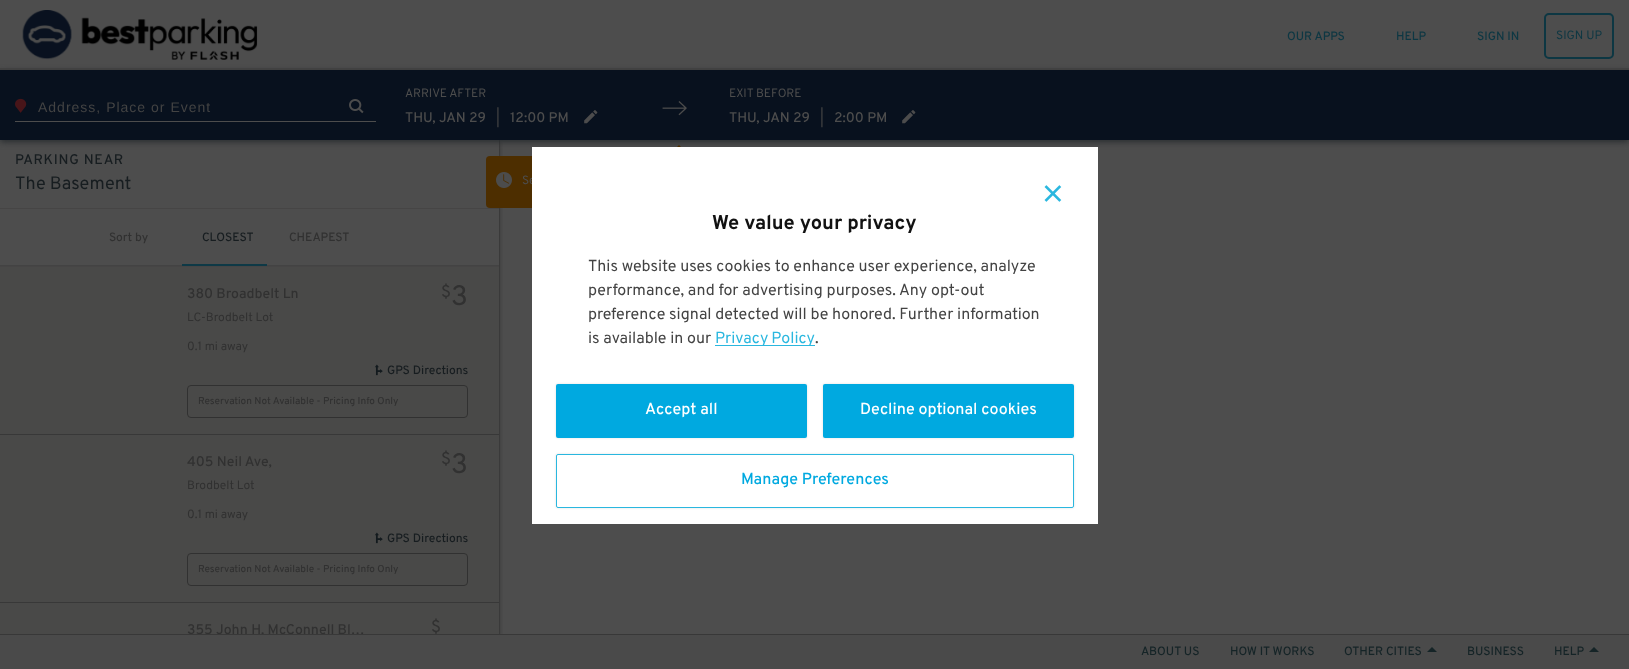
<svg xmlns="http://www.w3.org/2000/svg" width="1629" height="669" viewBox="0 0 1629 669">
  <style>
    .t1 { font: 500 12px Overpass; fill: #0d3743; }
    .t2 { font: 12px Overpass; fill: #0d3743; }
    .t3 { font: 14px Liberation Sans; letter-spacing: 1px; fill: #434343; }
    .t4 { font: 12px Overpass; fill: #4d4d4d; }
    .t5 { font: 500 14px Overpass; fill: #4d4d4d; }
    .t6 { font: 14px Overpass; fill: #434343; }
    .t7 { font: 500 14px Overpass; letter-spacing: 0.75px; fill: #171d20; }
    .t8 { font: 18px Overpass; fill: #171d20; }
    .t9 { font: 500 12px Overpass; fill: #313131; }
    .t10 { font: 500 12px Overpass; fill: #171d20; }
    .t11 { font: 500 14px Overpass; fill: #313131; }
    .t12 { font: 12px Overpass; fill: #313131; }
    .t13 { font: 17px Overpass; fill: #313131; }
    .t14 { font: 28px Overpass; fill: #313131; }
    .t15 { font: 500 10px Overpass; fill: #313131; }
    .t16 { font: 500 12px Overpass; fill: #152427; }
    .t17 { font: bold 20px Overpass; fill: #121212; }
    .t18 { font: 16px Overpass; fill: #434343; }
    .t19 { font: 16px Overpass; fill: #2ab7df; }
    .t20 { font: 500 16px Overpass; fill: #fff; }
    .t21 { font: 500 16px Overpass; fill: #00a9e0; }
  </style>
  <defs>
    <clipPath id="clip1"><rect x="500" y="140" width="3" height="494"/></clipPath>
    <clipPath id="clip2"><path d="M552 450H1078V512H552ZM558 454H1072C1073 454 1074 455 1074 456V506C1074 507 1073 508 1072 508H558C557 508 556 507 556 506V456C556 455 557 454 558 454Z" clip-rule="evenodd"/></clipPath>
  </defs>
  <rect width="100%" height="100%" fill="#4d4d4d"/>
  <g clip-path="url(#clip1)">
    <rect x="0" y="142" width="500" height="494" fill="#0000003d" filter="blur(2px)"/>
  </g>
  <rect x="499" y="140" width="1" height="494" fill="#3a3a3a"/>
  <rect x="0" y="72" width="1629" height="70" fill="#282c2f" filter="blur(3px)"/>
  <rect x="0" y="68" width="1629" height="2" fill="#414141"/>
  <image x="22" y="10" width="236" height="50" href="images/1.png"/>
  <text x="1287" y="40" class="t1">OUR APPS</text>
  <text x="1396" y="40" class="t1">HELP</text>
  <text x="1477" y="40" class="t1">SIGN IN</text>
  <rect x="1545" y="14" width="68" height="44" rx="4" fill="none" stroke="#0d3743" stroke-width="2"/>
  <text x="1556" y="39" class="t2">SIGN UP</text>
  <rect x="0" y="70" width="1629" height="70" fill="#08111e"/>
  <rect x="15" y="121" width="11" height="1" fill="#4d4d4d"/>
  <image x="15" y="98" width="12" height="15" href="images/2.png"/>
  <image x="349" y="99" width="15" height="15" href="images/3.png"/>
  <rect x="26" y="121" width="350" height="1" fill="#4d4d4d"/>
  <text x="38" y="112" class="t3">Address, Place or Event</text>
  <text x="405" y="97" class="t4">ARRIVE AFTER</text>
  <text x="405" y="122" class="t5">THU, JAN 29</text>
  <text x="496" y="122" class="t6">|</text>
  <text x="510" y="122" class="t5">12:00 PM</text>
  <image x="584" y="110" width="14" height="14" href="images/4.png"/>
  <image x="662" y="101" width="25" height="15" href="images/5.png"/>
  <text x="729" y="97" class="t4">EXIT BEFORE</text>
  <text x="729" y="122" class="t5">THU, JAN 29</text>
  <text x="820" y="122" class="t6">|</text>
  <text x="834" y="122" class="t5">2:00 PM</text>
  <image x="902" y="110" width="14" height="14" href="images/4.png"/>
  <rect x="0" y="208" width="499" height="1" fill="#464545"/>
  <text x="15" y="164" class="t7">PARKING NEAR</text>
  <text x="15" y="189" class="t8">The Basement</text>
  <rect x="0" y="266" width="499" height="1" fill="#464545"/>
  <rect x="0" y="265" width="499" height="1" fill="#434343"/>
  <text x="109" y="241" class="t9">Sort by</text>
  <text x="202" y="241" class="t10">CLOSEST</text>
  <text x="289" y="241" class="t9">CHEAPEST</text>
  <rect x="182" y="264" width="85" height="2" fill="#0e3946"/>
  <rect x="0" y="267" width="499" height="167" fill="#494948"/>
  <rect x="0" y="434" width="499" height="1" fill="#383838"/>
  <text x="187" y="298" class="t11">380 Broadbelt Ln</text>
  <text x="187" y="321" class="t12">LC-Brodbelt Lot</text>
  <text x="187" y="350" class="t12">0.1 mi away</text>
  <text x="441" y="297" class="t13">$</text>
  <text x="451" y="305" class="t14">3</text>
  <image x="374" y="364" width="9" height="12" href="images/6.png"/>
  <text x="387" y="374" class="t10">GPS Directions</text>
  <rect x="187.5" y="385.5" width="280" height="32" rx="3.5" fill="none" stroke="#313131"/>
  <text x="198" y="404" class="t15">Reservation Not Available - Pricing Info Only</text>
  <rect x="0" y="435" width="499" height="167" fill="#494948"/>
  <rect x="0" y="602" width="499" height="1" fill="#383838"/>
  <text x="187" y="466" class="t11">405 Neil Ave,</text>
  <text x="187" y="489" class="t12">Brodbelt Lot</text>
  <text x="187" y="518" class="t12">0.1 mi away</text>
  <text x="441" y="464" class="t13">$</text>
  <text x="451" y="473" class="t14">3</text>
  <image x="374" y="532" width="9" height="12" href="images/6.png"/>
  <text x="387" y="542" class="t10">GPS Directions</text>
  <rect x="187.5" y="553.5" width="280" height="32" rx="3.5" fill="none" stroke="#313131"/>
  <text x="198" y="572" class="t15">Reservation Not Available - Pricing Info Only</text>
  <rect x="0" y="603" width="499" height="31" fill="#494948"/>
  <text x="187" y="634" class="t11">355 John H. McConnell Bl…</text>
  <text x="431" y="632" class="t13">$</text>
  <rect x="486" y="156" width="374" height="52" rx="4" fill="#4d2e00"/>
  <path d="M691 157H667L679 145Z" fill="#4d2e00"/>
  <image x="496" y="172" width="16" height="16" href="images/7.png"/>
  <text x="522" y="184" class="t4">Se</text>
  <rect x="0" y="635" width="1629" height="34" fill="#4a4a4a"/>
  <rect x="0" y="634" width="1629" height="1" fill="#383838"/>
  <text x="1141" y="655" class="t16">ABOUT US</text>
  <text x="1230" y="655" class="t16">HOW IT WORKS</text>
  <text x="1344" y="655" class="t16">OTHER CITIES</text>
  <path d="M1437 652H1427L1432 647Z" fill="#152427"/>
  <text x="1467" y="655" class="t16">BUSINESS</text>
  <text x="1554" y="655" class="t16">HELP</text>
  <path d="M1599 652H1589L1594 647Z" fill="#152427"/>
  <rect x="532" y="147" width="566" height="377" fill="#fff"/>
  <image x="1044" y="185" width="18" height="17" href="images/8.png"/>
  <text x="712" y="229" class="t17">We value your privacy</text>
  <text x="588" y="271" class="t18">This website uses cookies to enhance user experience, analyze</text>
  <text x="588" y="295" class="t18">performance, and for advertising purposes. Any opt-out</text>
  <text x="588" y="319" class="t18">preference signal detected will be honored. Further information</text>
  <text x="588" y="343" class="t18">is available in our</text>
  <rect x="715" y="345" width="100" height="1" fill="#2ab7df"/>
  <text x="715" y="343" word-spacing="-1" class="t19">Privacy Policy</text>
  <text x="815" y="343" class="t18">.</text>
  <rect x="556" y="384" width="251" height="54" rx="2" fill="#0000001f" filter="blur(1px)"/>
  <rect x="556" y="384" width="251" height="54" rx="2" fill="#00a9e0"/>
  <text x="645" y="414" class="t20">Accept all</text>
  <rect x="823" y="384" width="251" height="54" rx="2" fill="#0000001f" filter="blur(1px)"/>
  <rect x="823" y="384" width="251" height="54" rx="2" fill="#00a9e0"/>
  <text x="860" y="414" class="t20">Decline optional cookies</text>
  <g clip-path="url(#clip2)">
    <rect x="556" y="454" width="518" height="54" rx="2" fill="#0000001f" filter="blur(1px)"/>
  </g>
  <rect x="556.5" y="454.5" width="517" height="53" rx="1.5" fill="none" stroke="#2ab7df"/>
  <text x="741" y="484" class="t21">Manage Preferences</text>
</svg>
